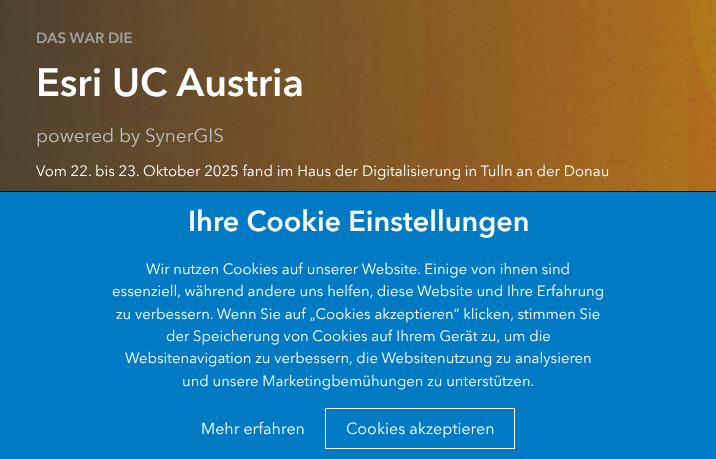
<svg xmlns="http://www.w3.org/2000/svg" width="716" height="459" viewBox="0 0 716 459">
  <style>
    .t1 { font: bold 14.9px Avenir Next; fill: #9f9f9f; }
    .t2 { font: bold 39.25px Avenir Next; fill: #fff; }
    .t3 { font: 19px Avenir Next; fill: #bfbfbf; }
    .t4 { font: 14.9px Avenir Next; fill: #fff; }
    .t5 { font: bold 28.75px Avenir Next; fill: #fff; }
    .t6 { font: 16px Avenir Next; fill: #fff; }
  </style>
  <rect width="100%" height="100%" fill="#fff"/>
  <image x="0" y="0" width="716" height="191" href="images/1.png"/>
  <text x="36" y="43" class="t1">DAS WAR DIE</text>
  <text x="36" y="96" class="t2">Esri UC Austria</text>
  <text x="36" y="142" class="t3">powered by SynerGIS</text>
  <text x="36" y="176" class="t4">Vom 22. bis 23. Oktober 2025 fand im Haus der Digitalisierung in Tulln an der Donau</text>
  <rect x="0" y="192" width="716" height="267" fill="#007ac2"/>
  <rect x="0" y="191" width="716" height="1" fill="#001726"/>
  <text x="188" y="231" class="t5">Ihre Cookie Einstellungen</text>
  <text x="146" y="274" class="t4">Wir nutzen Cookies auf unserer Website. Einige von ihnen sind</text>
  <text x="112" y="296" class="t4">essenziell, während andere uns helfen, diese Website und Ihre Erfahrung</text>
  <text x="116" y="319" class="t4">zu verbessern. Wenn Sie auf „Cookies akzeptieren“ klicken, stimmen Sie</text>
  <text x="166" y="341" class="t4">der Speicherung von Cookies auf Ihrem Gerät zu, um die</text>
  <text x="125" y="363" class="t4">Websitenavigation zu verbessern, die Websitenutzung zu analysieren</text>
  <text x="182" y="386" class="t4">und unsere Marketingbemühungen zu unterstützen.</text>
  <text x="201" y="434" class="t6">Mehr erfahren</text>
  <rect x="325.5" y="408.5" width="189" height="40" fill="none" stroke="#fff"/>
  <text x="346" y="434" class="t6">Cookies akzeptieren</text>
</svg>
